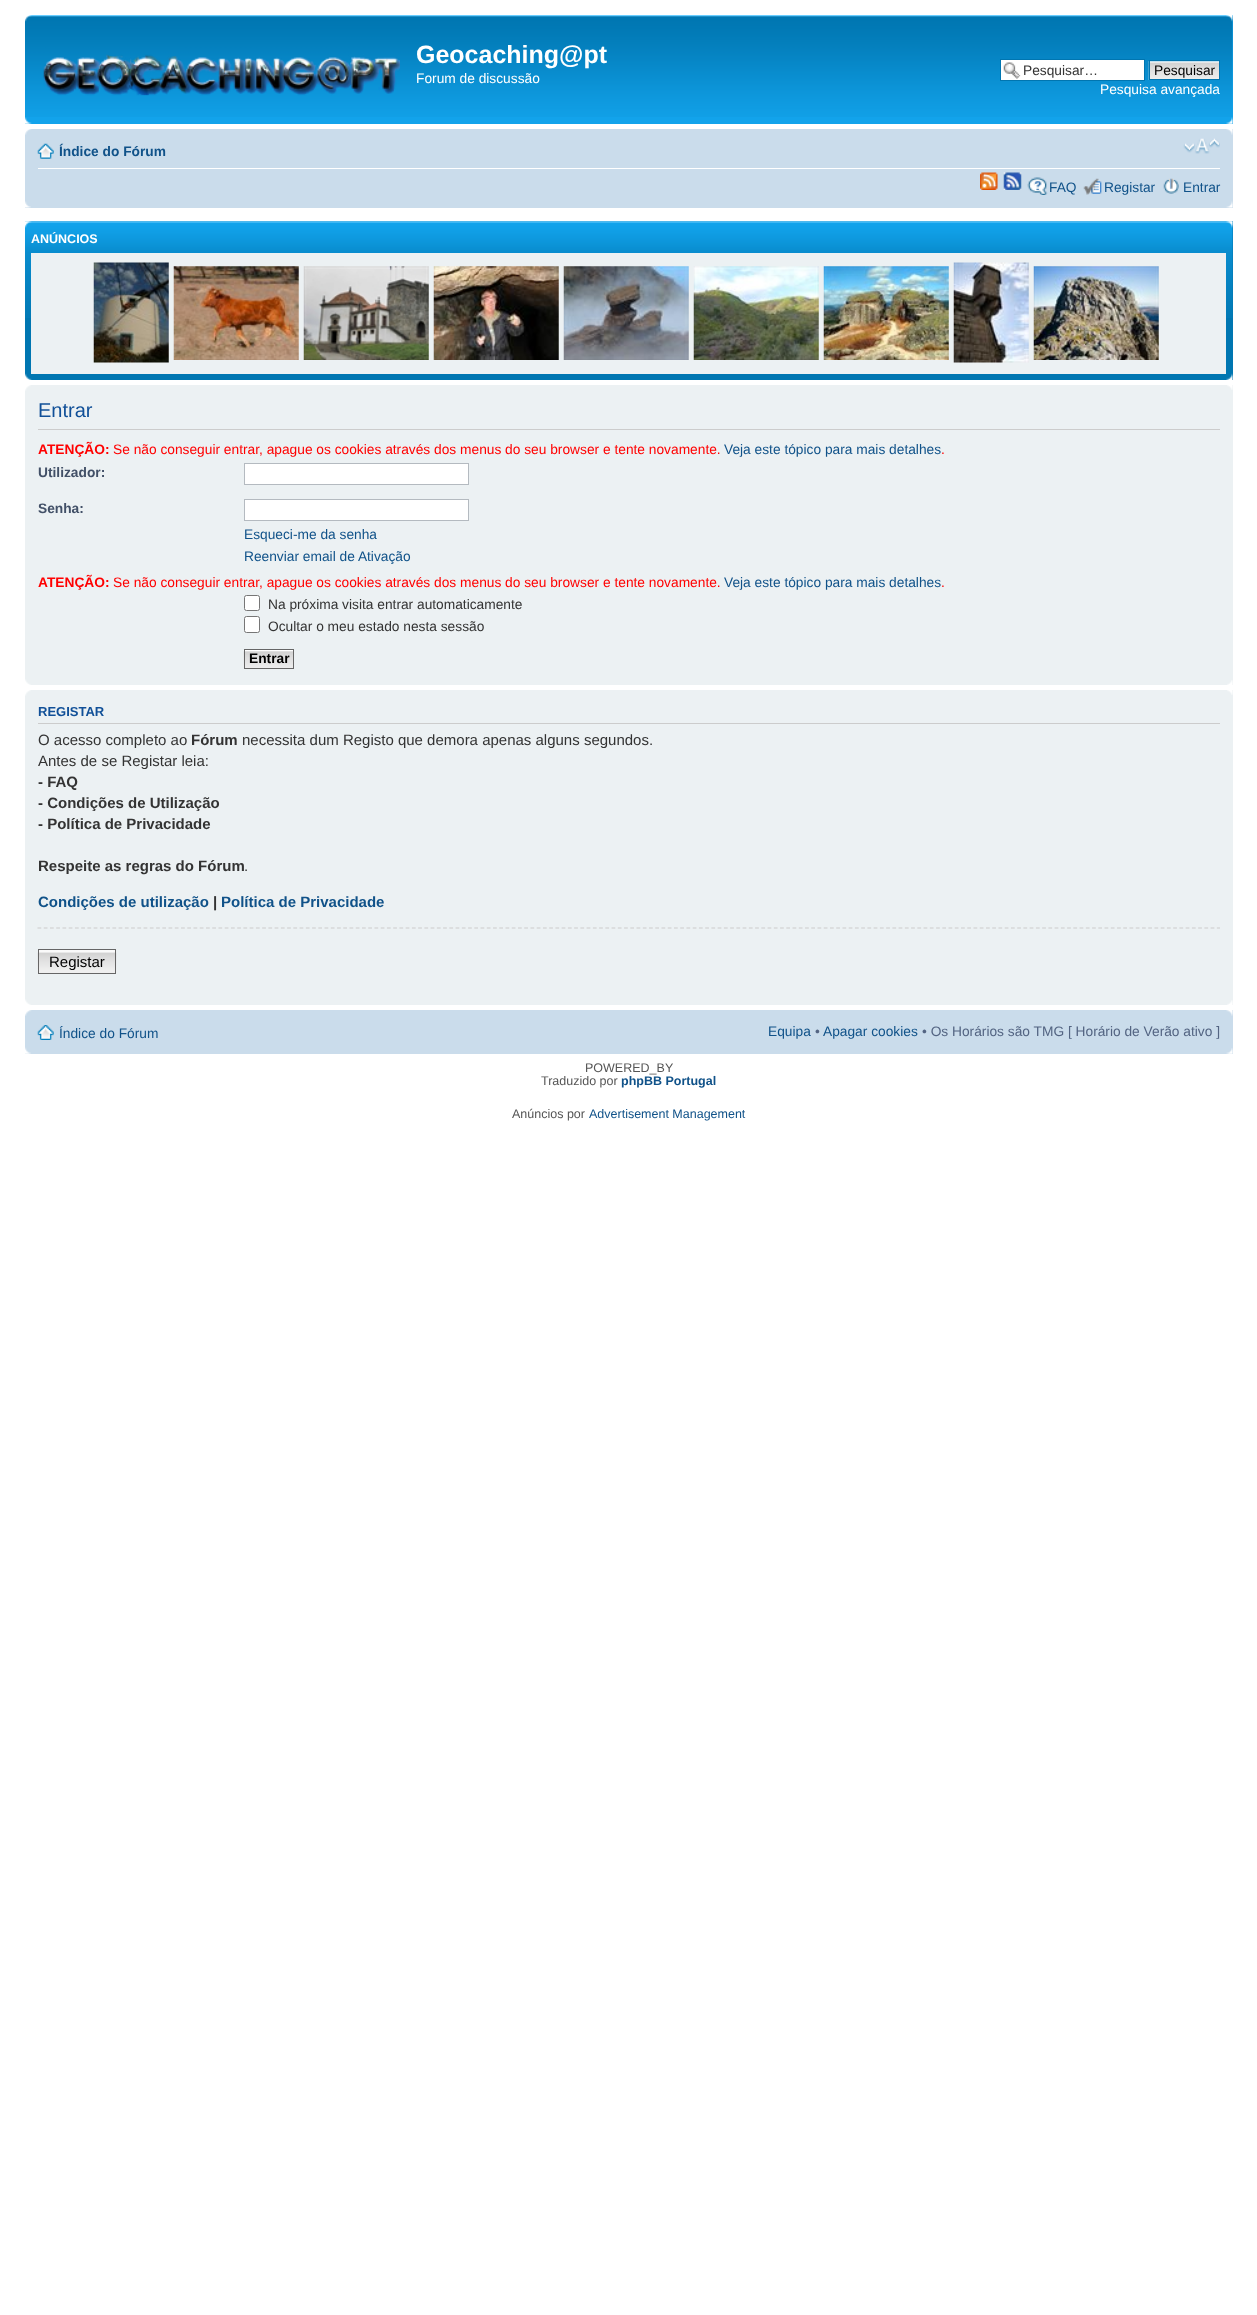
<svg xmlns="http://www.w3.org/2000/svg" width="1257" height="2315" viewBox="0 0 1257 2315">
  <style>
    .t1 { font: bold 25px Liberation Sans; fill: #fff; }
    .t2 { font: 13.75px Liberation Sans; fill: #fff; }
    .t3 { font: 13.75px Liberation Sans; fill: #333; }
    .t4 { font: 13.75px Liberation Sans; fill: #000; }
    .t5 { font: bold 13.75px Liberation Sans; fill: #105289; }
    .t6 { font: 13.75px Liberation Sans; fill: #105289; }
    .t7 { font: bold 12.5px Liberation Sans; fill: #fff; }
    .t8 { font: 20px Liberation Sans; fill: #115098; }
    .t9 { font: bold 13.75px Liberation Sans; fill: #f00; }
    .t10 { font: 13.75px Liberation Sans; fill: #f00; }
    .t11 { font: bold 13.75px Liberation Sans; fill: #425067; }
    .t12 { font: bold 13.75px Liberation Sans; fill: #000; }
    .t13 { font: bold 13px Liberation Sans; fill: #115098; }
    .t14 { font: 15px Liberation Sans; fill: #333; }
    .t15 { font: bold 15px Liberation Sans; fill: #333; }
    .t16 { font: bold 15px Liberation Sans; fill: #105289; }
    .t17 { font: 15px Liberation Sans; fill: #000; }
    .t18 { font: 13.75px Liberation Sans; fill: #536482; }
    .t19 { font: 12.5px Liberation Sans; fill: #555; }
    .t20 { font: bold 12.5px Liberation Sans; fill: #105289; }
    .t21 { font: 12.5px Liberation Sans; fill: #105289; }
  </style>
  <rect width="100%" height="100%" fill="#fff"/>
  <rect x="25" y="15" width="1208" height="109" fill="#12a3eb"/>
  <image x="25" y="15" width="1208" height="102" href="images/1.png"/>
  <image x="25" y="15" width="7" height="7" href="images/2.png"/>
  <image x="1226" y="15" width="7" height="7" href="images/3.png"/>
  <image x="43" y="54" width="357" height="42" href="images/4.png"/>
  <text x="416" y="63" class="t1">Geocaching@pt</text>
  <text x="416" y="83" class="t2">Forum de discussão</text>
  <rect x="1001" y="60" width="143" height="20" fill="#fff"/>
  <image x="1003" y="62" width="18" height="17" href="images/5.png"/>
  <rect x="1000.5" y="59.5" width="144" height="21" fill="none" stroke="#0075b0"/>
  <text x="1023" y="75" class="t3">Pesquisar…</text>
  <image x="1148" y="61" width="71" height="19" href="images/6.png"/>
  <rect x="1149.5" y="60.5" width="70" height="19" fill="none" stroke="#0075b0"/>
  <text x="1154" y="75" class="t4">Pesquisar</text>
  <text x="1100" y="94" class="t2">Pesquisa avançada</text>
  <image x="25" y="117" width="7" height="7" href="images/7.png"/>
  <image x="1226" y="117" width="7" height="7" href="images/8.png"/>
  <rect x="25" y="129" width="1208" height="79" fill="#cadceb"/>
  <image x="25" y="129" width="7" height="6" href="images/9.png"/>
  <image x="1226" y="129" width="7" height="6" href="images/10.png"/>
  <rect x="38" y="168" width="1182" height="1" fill="#fff"/>
  <image x="37" y="143" width="17" height="16" href="images/11.png"/>
  <text x="59" y="156" class="t5">Índice do Fórum</text>
  <image x="1183" y="138" width="37" height="16" href="images/12.png"/>
  <image x="980" y="172" width="18" height="18" href="images/13.png"/>
  <image x="1003" y="172" width="19" height="18" href="images/14.png"/>
  <image x="1027" y="177" width="21" height="18" href="images/15.png"/>
  <text x="1049" y="192" class="t6">FAQ</text>
  <image x="1083" y="178" width="19" height="17" href="images/16.png"/>
  <text x="1104" y="192" class="t6">Registar</text>
  <image x="1163" y="178" width="16" height="16" href="images/17.png"/>
  <text x="1183" y="192" class="t6">Entrar</text>
  <image x="25" y="201" width="6" height="7" href="images/18.png"/>
  <image x="1226" y="201" width="7" height="7" href="images/19.png"/>
  <rect x="25" y="221" width="1208" height="159" fill="#0076b1"/>
  <image x="25" y="221" width="1208" height="97" href="images/20.png"/>
  <image x="25" y="221" width="7" height="7" href="images/21.png"/>
  <image x="1226" y="221" width="7" height="7" href="images/22.png"/>
  <text x="31" y="243" class="t7">ANÚNCIOS</text>
  <rect x="31" y="253" width="1195" height="121" fill="#ecf1f3"/>
  <image x="93" y="262" width="1066" height="101" href="images/23.png"/>
  <image x="25" y="373" width="7" height="7" href="images/24.png"/>
  <image x="1226" y="373" width="7" height="7" href="images/25.png"/>
  <rect x="25" y="385" width="1208" height="300" fill="#ecf1f3"/>
  <image x="25" y="385" width="6" height="6" href="images/26.png"/>
  <image x="1227" y="385" width="6" height="5" href="images/27.png"/>
  <rect x="38" y="429" width="1182" height="1" fill="#ccc"/>
  <text x="38" y="417" class="t8">Entrar</text>
  <text x="38" y="454" class="t9">ATENÇÃO:</text>
  <text x="113" y="454" class="t10">Se não conseguir entrar, apague os cookies através dos menus do seu browser e tente novamente.</text>
  <text x="724" y="454" class="t6">Veja este tópico para mais detalhes</text>
  <text x="941" y="454" class="t10">.</text>
  <text x="38" y="477" class="t11">Utilizador:</text>
  <rect x="244.5" y="463.5" width="224" height="21" fill="#fff" stroke="#b4bac0"/>
  <text x="38" y="513" class="t11">Senha:</text>
  <rect x="244.5" y="499.5" width="224" height="21" fill="#fff" stroke="#b4bac0"/>
  <text x="244" y="539" class="t6">Esqueci-me da senha</text>
  <text x="244" y="561" class="t6">Reenviar email de Ativação</text>
  <text x="38" y="587" class="t9">ATENÇÃO:</text>
  <text x="113" y="587" class="t10">Se não conseguir entrar, apague os cookies através dos menus do seu browser e tente novamente.</text>
  <text x="724" y="587" class="t6">Veja este tópico para mais detalhes</text>
  <text x="941" y="587" class="t10">.</text>
  <rect x="244.5" y="595.5" width="15" height="15" rx="2" fill="#fff" stroke="#767676"/>
  <text x="268" y="609" class="t3">Na próxima visita entrar automaticamente</text>
  <rect x="244.5" y="616.5" width="15" height="16" rx="2" fill="#fff" stroke="#767676"/>
  <text x="268" y="631" class="t3">Ocultar o meu estado nesta sessão</text>
  <image x="243" y="650" width="50" height="19" href="images/28.png"/>
  <rect x="244.5" y="649.5" width="49" height="19" fill="none" stroke="#666"/>
  <text x="249" y="663" class="t12">Entrar</text>
  <image x="25" y="679" width="6" height="6" href="images/29.png"/>
  <image x="1227" y="680" width="6" height="5" href="images/30.png"/>
  <rect x="25" y="690" width="1208" height="315" fill="#ecf1f3"/>
  <image x="25" y="690" width="6" height="6" href="images/26.png"/>
  <image x="1227" y="690" width="6" height="5" href="images/27.png"/>
  <rect x="38" y="723" width="1182" height="1" fill="#ccc"/>
  <text x="38" y="716" class="t13">REGISTAR</text>
  <text x="38" y="745" class="t14">O acesso completo ao</text>
  <text x="191" y="745" class="t15">Fórum</text>
  <text x="242" y="745" class="t14">necessita dum Registo que demora apenas alguns segundos.</text>
  <text x="38" y="766" class="t14">Antes de se Registar leia:</text>
  <text x="38" y="787" class="t15">- FAQ</text>
  <text x="38" y="808" class="t15">- Condições de Utilização</text>
  <text x="38" y="829" class="t15">- Política de Privacidade</text>
  <text x="38" y="871" class="t15">Respeite as regras do Fórum</text>
  <text x="244" y="871" class="t14">.</text>
  <text x="38" y="907" class="t16">Condições de utilização</text>
  <text x="213" y="907" class="t15">|</text>
  <text x="221" y="907" class="t16">Política de Privacidade</text>
  <path d="M37.5 928H1220" fill="none" stroke="#ccc" stroke-width="1.2" stroke-dasharray="3.75 2.49"/>
  <image x="37" y="952" width="80" height="22" href="images/31.png"/>
  <rect x="39" y="950" width="76" height="2" fill="#fafafa"/>
  <rect x="38.5" y="949.5" width="77" height="24" fill="none" stroke="#666"/>
  <text x="49" y="967" class="t17">Registar</text>
  <image x="25" y="999" width="6" height="6" href="images/29.png"/>
  <image x="1227" y="1000" width="6" height="5" href="images/30.png"/>
  <rect x="25" y="1010" width="1208" height="44" fill="#cadceb"/>
  <image x="25" y="1010" width="7" height="6" href="images/32.png"/>
  <image x="1226" y="1010" width="7" height="6" href="images/33.png"/>
  <image x="37" y="1025" width="17" height="15" href="images/34.png"/>
  <text x="59" y="1038" class="t6">Índice do Fórum</text>
  <text x="768" y="1036" class="t6">Equipa</text>
  <text x="815" y="1036" class="t18">•</text>
  <text x="823" y="1036" class="t6">Apagar cookies</text>
  <text x="922" y="1036" class="t18">• Os Horários são TMG [ Horário de Verão ativo ]</text>
  <image x="25" y="1047" width="6" height="7" href="images/35.png"/>
  <image x="1226" y="1048" width="7" height="6" href="images/36.png"/>
  <text x="585" y="1072" class="t19">POWERED_BY</text>
  <text x="541" y="1085" class="t19">Traduzido por</text>
  <text x="621" y="1085" class="t20">phpBB Portugal</text>
  <text x="512" y="1118" class="t19">Anúncios por</text>
  <text x="589" y="1118" class="t21">Advertisement Management</text>
</svg>
